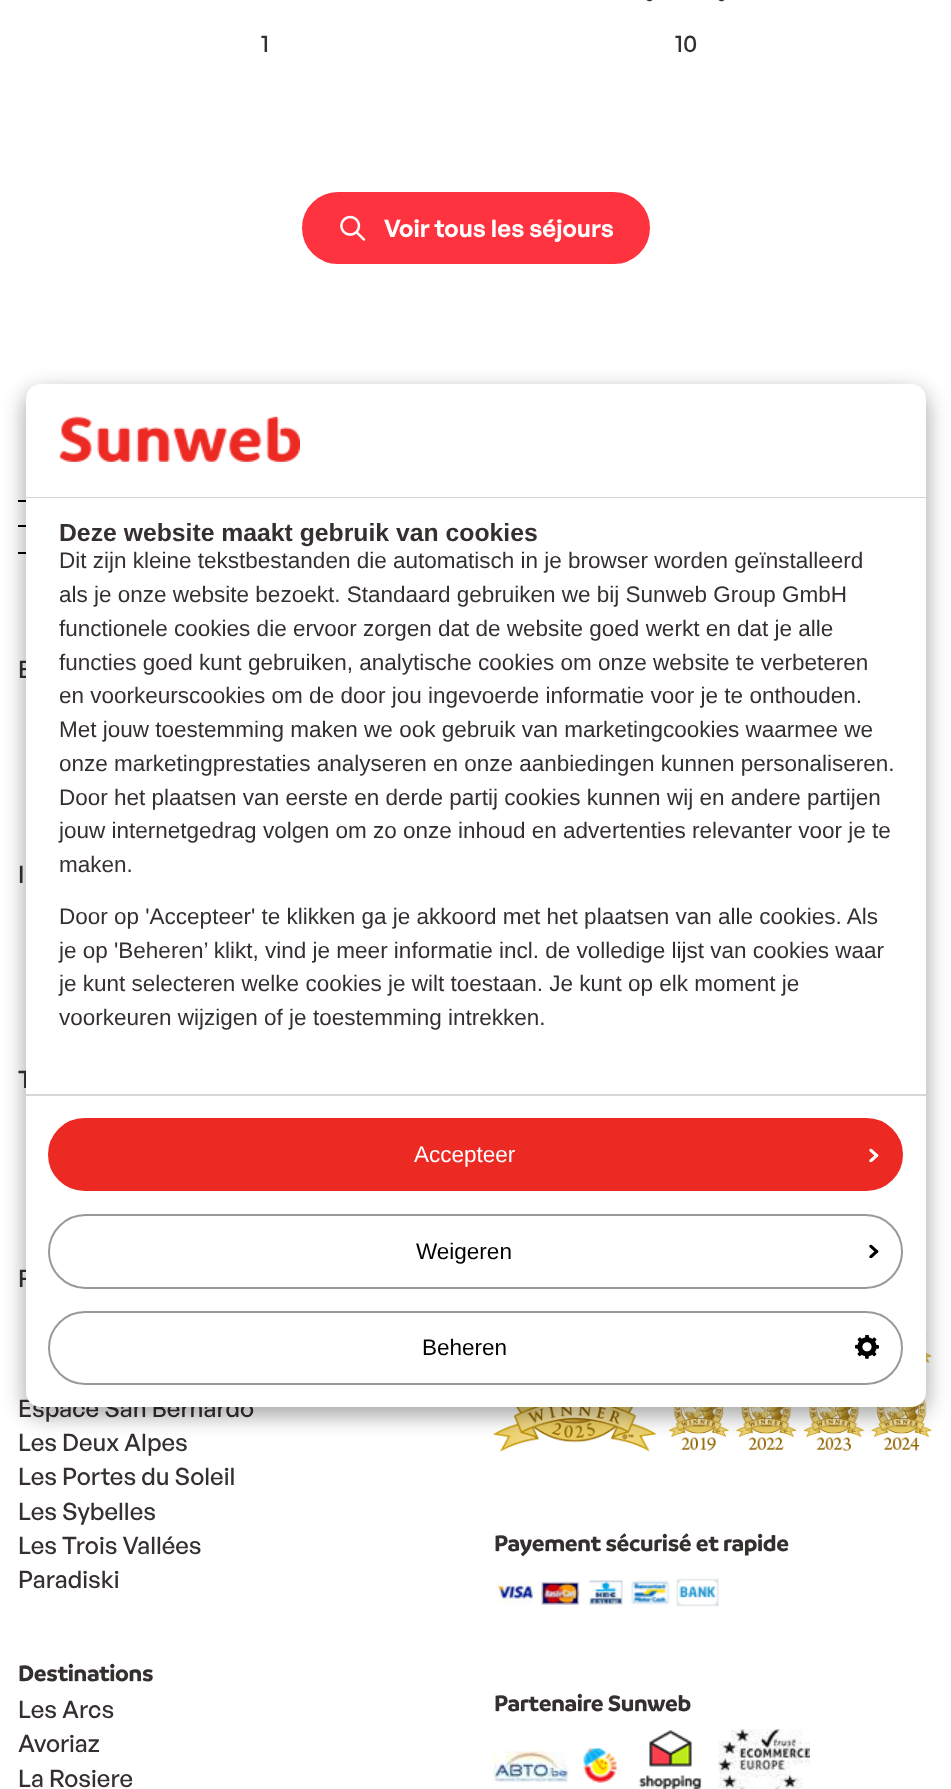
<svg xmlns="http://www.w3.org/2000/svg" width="951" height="1789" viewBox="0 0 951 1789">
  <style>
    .t1 { font: 500 24px General Sans; fill: #362f2f; }
    .t2 { font: 600 24px General Sans; fill: #fff; }
    .t3 { font: bold 24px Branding; letter-spacing: -0.35px; fill: #362f2f; }
    .t4 { font: bold 24.75px Liberation Sans; fill: #362f2f; }
    .t5 { font: 22.5px Liberation Sans; fill: #362f2f; }
    .t6 { font: 22.5px Liberation Sans; fill: #fff; }
    .t7 { font: 22.5px Liberation Sans; fill: #000; }
  </style>
  <rect width="100%" height="100%" fill="#fff"/>
  <text x="261" y="52" class="t1">1</text>
  <image x="646" y="0" width="79" height="2" href="images/1.png"/>
  <text x="675" y="52" class="t1">10</text>
  <rect x="303.5" y="193.5" width="345" height="69" rx="34.5" fill="#ff333f" stroke="#ff333f" stroke-width="3"/>
  <image x="340" y="215" width="26" height="26" href="images/2.png"/>
  <text x="384" y="237" class="t2">Voir tous les séjours</text>
  <rect x="18" y="500" width="8" height="2" fill="#000"/>
  <rect x="18" y="525" width="8" height="2" fill="#000"/>
  <rect x="18" y="552" width="8" height="2" fill="#000"/>
  <text x="18" y="678" class="t1">E</text>
  <text x="18" y="883" class="t1">I</text>
  <text x="18" y="1088" class="t1">T</text>
  <text x="18" y="1287" class="t1">F</text>
  <text x="18" y="1417" class="t1">Espace San Bernardo</text>
  <text x="18" y="1451" class="t1">Les Deux Alpes</text>
  <text x="18" y="1485" class="t1">Les Portes du Soleil</text>
  <text x="18" y="1520" class="t1">Les Sybelles</text>
  <text x="18" y="1554" class="t1">Les Trois Vallées</text>
  <text x="18" y="1588" class="t1">Paradiski</text>
  <image x="493" y="1331" width="439" height="121" href="images/3.png"/>
  <text x="494" y="1551" class="t3">Payement sécurisé et rapide</text>
  <image x="496" y="1578" width="223" height="29" href="images/4.png"/>
  <text x="18" y="1681" class="t3">Destinations</text>
  <text x="18" y="1718" class="t1">Les Arcs</text>
  <text x="18" y="1752" class="t1">Avoriaz</text>
  <text x="18" y="1787" class="t1">La Rosiere</text>
  <text x="494" y="1711" class="t3">Partenaire Sunweb</text>
  <image x="493" y="1751" width="76" height="31" href="images/5.png"/>
  <image x="583" y="1748" width="34" height="35" href="images/6.png"/>
  <image x="638" y="1730" width="64" height="59" href="images/7.png"/>
  <image x="718" y="1729" width="92" height="60" href="images/8.png"/>
  <rect x="26" y="392" width="900" height="1023" rx="15" fill="#00000030" filter="blur(11px)"/>
  <rect x="26" y="392" width="900" height="1023" rx="15" fill="#00000033" filter="blur(11px)"/>
  <path d="M41 384H911C919.5 384 926 390.5 926 399V498H26V399C26 390.5 32.5 384 41 384Z" fill="#fff"/>
  <rect x="26" y="497" width="900" height="1" fill="#d6d6d6"/>
  <image x="59" y="416" width="241" height="46" href="images/9.png"/>
  <rect x="26" y="498" width="900" height="596" fill="#fff"/>
  <text x="59" y="541" class="t4">Deze website maakt gebruik van cookies</text>
  <text x="59" y="568" class="t5">Dit zijn kleine tekstbestanden die automatisch in je browser worden geïnstalleerd</text>
  <text x="59" y="602" class="t5">als je onze website bezoekt. Standaard gebruiken we bij Sunweb Group GmbH</text>
  <text x="59" y="636" class="t5">functionele cookies die ervoor zorgen dat de website goed werkt en dat je alle</text>
  <text x="59" y="670" class="t5">functies goed kunt gebruiken, analytische cookies om onze website te verbeteren</text>
  <text x="59" y="703" class="t5">en voorkeurscookies om de door jou ingevoerde informatie voor je te onthouden.</text>
  <text x="59" y="737" class="t5">Met jouw toestemming maken we ook gebruik van marketingcookies waarmee we</text>
  <text x="59" y="771" class="t5">onze marketingprestaties analyseren en onze aanbiedingen kunnen personaliseren.</text>
  <text x="59" y="805" class="t5">Door het plaatsen van eerste en derde partij cookies kunnen wij en andere partijen</text>
  <text x="59" y="838" class="t5">jouw internetgedrag volgen om zo onze inhoud en advertenties relevanter voor je te</text>
  <text x="59" y="872" class="t5">maken.</text>
  <text x="59" y="924" class="t5">Door op 'Accepteer' te klikken ga je akkoord met het plaatsen van alle cookies. Als</text>
  <text x="59" y="958" class="t5">je op 'Beheren’ klikt, vind je meer informatie incl. de volledige lijst van cookies waar</text>
  <text x="59" y="991" class="t5">je kunt selecteren welke cookies je wilt toestaan. Je kunt op elk moment je</text>
  <text x="59" y="1025" class="t5">voorkeuren wijzigen of je toestemming intrekken.</text>
  <path d="M26 1094H926V1392C926 1400.5 919.5 1407 911 1407H41C32.5 1407 26 1400.5 26 1392Z" fill="#fff"/>
  <rect x="26" y="1094" width="900" height="2" fill="#d6d6d6"/>
  <rect x="49" y="1119" width="853" height="71" rx="35.5" fill="#ed2924" stroke="#ed2924" stroke-width="2"/>
  <text x="414" y="1162" class="t6">Accepteer</text>
  <image x="869" y="1148" width="10" height="14" href="images/10.png"/>
  <rect x="49" y="1215" width="853" height="73" rx="36.5" fill="none" stroke="#999" stroke-width="2"/>
  <text x="416" y="1259" class="t7">Weigeren</text>
  <image x="869" y="1244" width="10" height="14" href="images/11.png"/>
  <rect x="49" y="1312" width="853" height="72" rx="36" fill="none" stroke="#999" stroke-width="2"/>
  <text x="422" y="1355" class="t7">Beheren</text>
  <image x="855" y="1335" width="24" height="24" href="images/12.png"/>
</svg>
